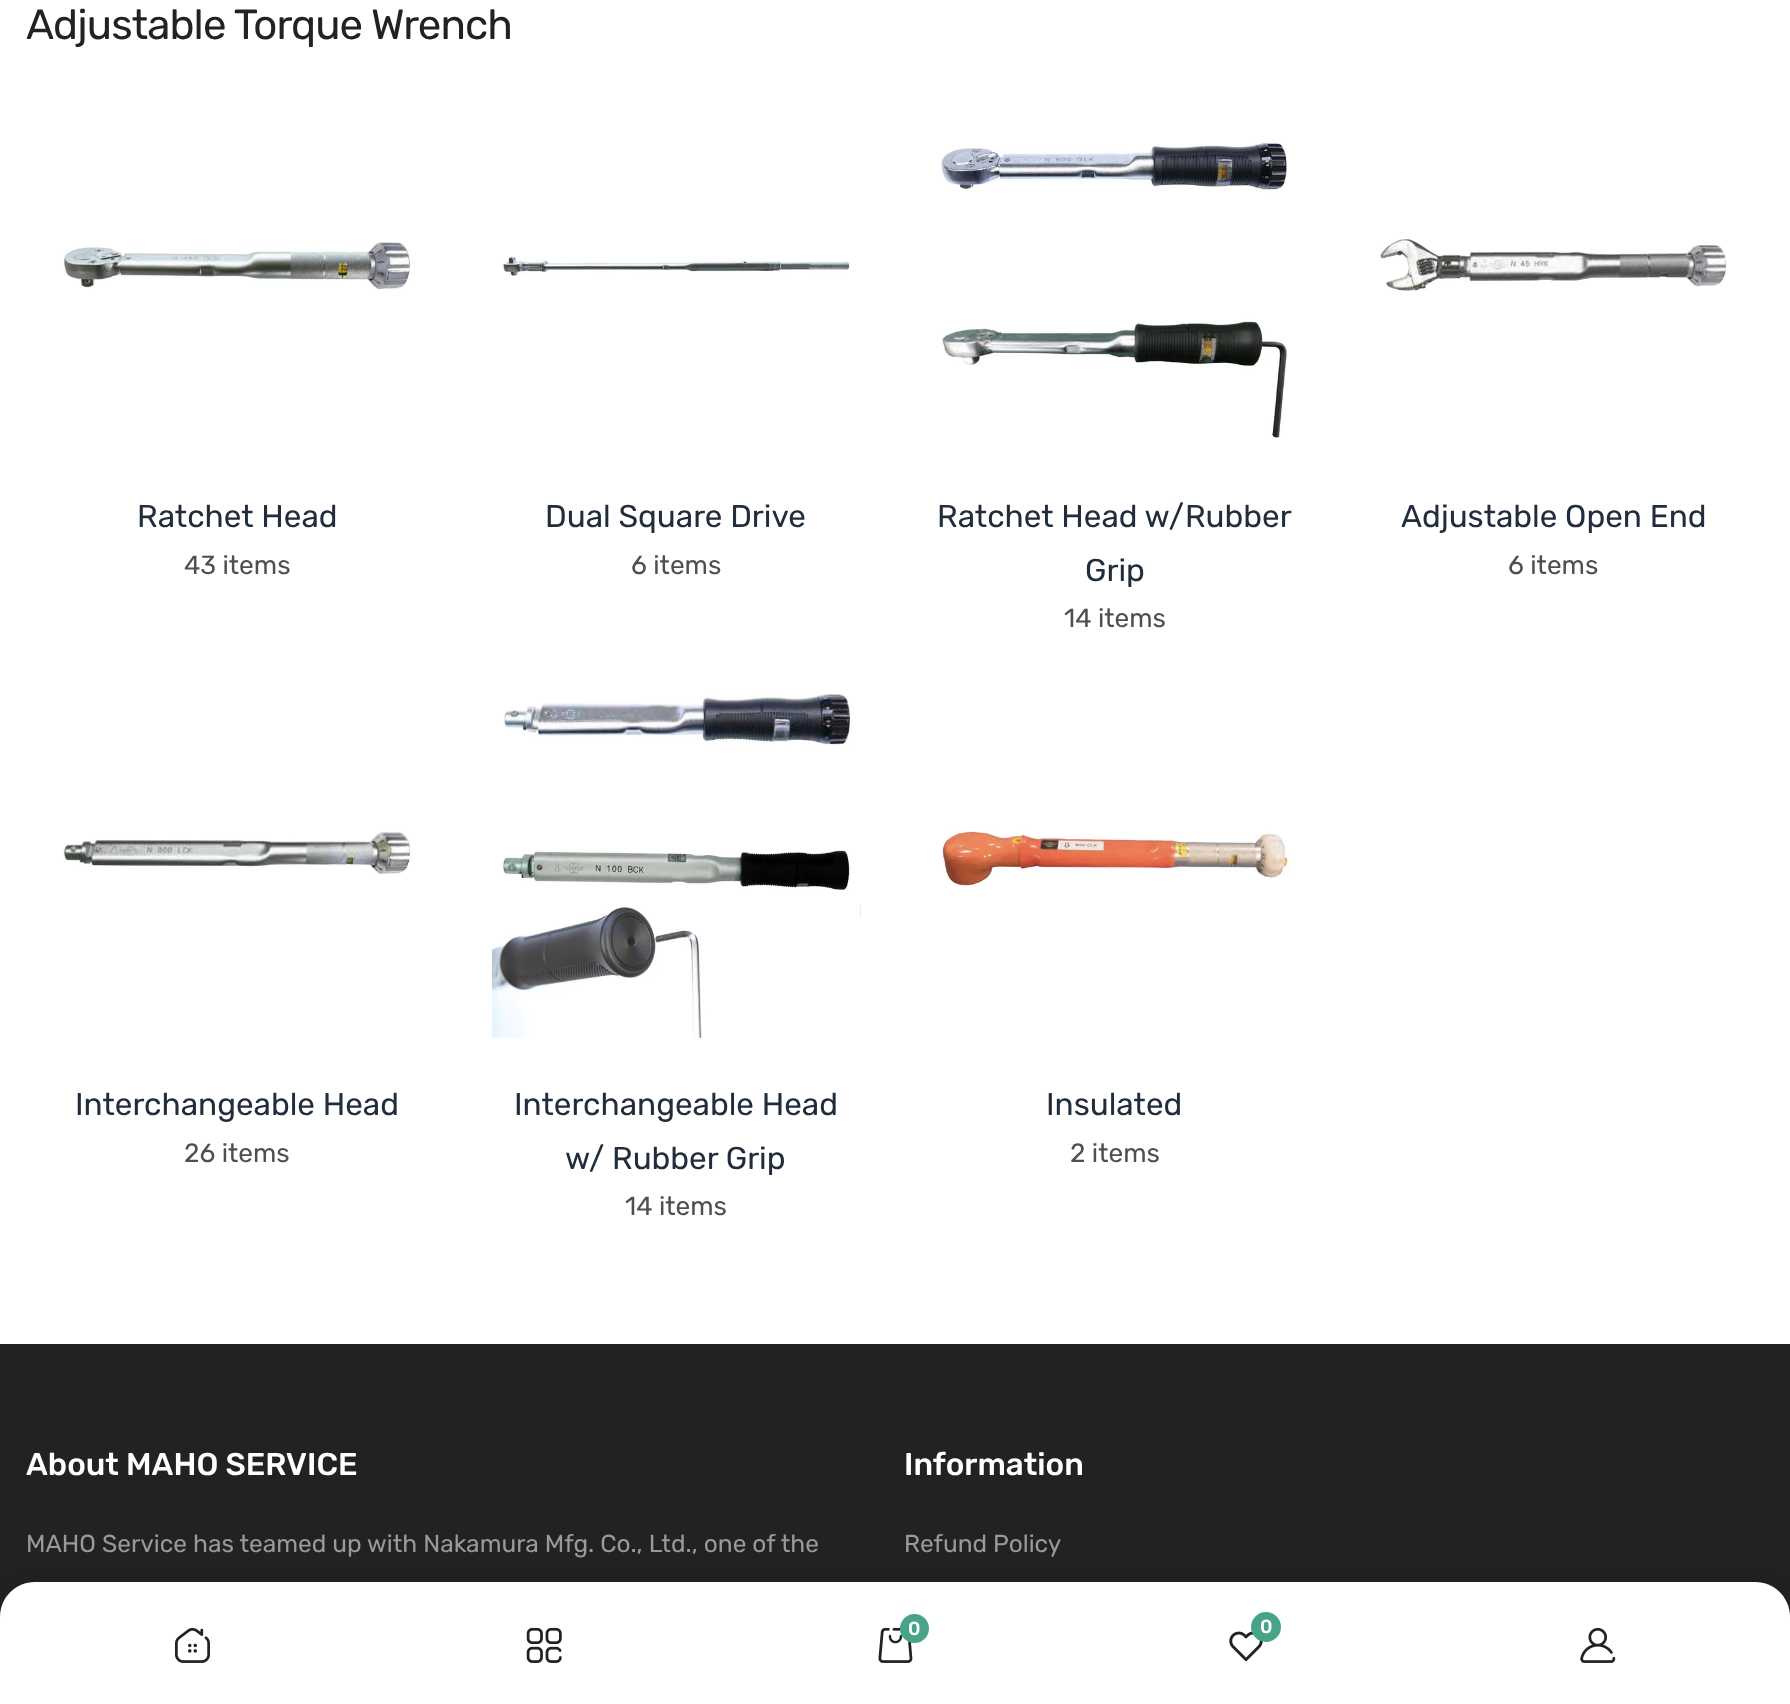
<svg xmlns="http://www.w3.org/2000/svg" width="1790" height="1704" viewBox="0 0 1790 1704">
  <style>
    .t1 { font: 42px Rubik; letter-spacing: -0.9px; fill: #222; }
    .t2 { font: 31.5px Rubik; fill: #212d3d; }
    .t3 { font: 26.25px Rubik; fill: #4f4f4f; }
    .t4 { font: 500 31.5px Rubik; fill: #fff; }
    .t5 { font: 24.5px Rubik; fill: #999; }
    .t6 { font: 500 19px Rubik; fill: #fff; }
  </style>
  <rect width="100%" height="100%" fill="#fff"/>
  <text x="26" y="39" class="t1">Adjustable Torque Wrench</text>
  <image x="63" y="242" width="349" height="48" href="images/1.png"/>
  <text x="137" y="527" class="t2">Ratchet Head</text>
  <text x="184" y="574" class="t3">43 items</text>
  <image x="502" y="256" width="348" height="21" href="images/2.png"/>
  <text x="545" y="527" class="t2">Dual Square Drive</text>
  <text x="631" y="574" class="t3">6 items</text>
  <image x="941" y="142" width="347" height="296" href="images/3.png"/>
  <text x="937" y="527" class="t2">Ratchet Head w/Rubber</text>
  <text x="1085" y="581" class="t2">Grip</text>
  <text x="1064" y="627" class="t3">14 items</text>
  <image x="1380" y="239" width="347" height="52" href="images/4.png"/>
  <text x="1401" y="527" class="t2">Adjustable Open End</text>
  <text x="1508" y="574" class="t3">6 items</text>
  <image x="63" y="831" width="349" height="43" href="images/5.png"/>
  <text x="75" y="1115" class="t2">Interchangeable Head</text>
  <text x="184" y="1162" class="t3">26 items</text>
  <image x="491" y="693" width="370" height="345" href="images/6.png"/>
  <text x="514" y="1115" class="t2">Interchangeable Head</text>
  <text x="565" y="1169" class="t2">w/ Rubber Grip</text>
  <text x="625" y="1215" class="t3">14 items</text>
  <image x="941" y="831" width="348" height="56" href="images/7.png"/>
  <text x="1046" y="1115" class="t2">Insulated</text>
  <text x="1070" y="1162" class="t3">2 items</text>
  <rect x="0" y="1344" width="1790" height="273" fill="#222"/>
  <text x="26" y="1475" class="t4">About MAHO SERVICE</text>
  <text x="26" y="1552" class="t5">MAHO Service has teamed up with Nakamura Mfg. Co., Ltd., one of the</text>
  <text x="904" y="1475" class="t4">Information</text>
  <text x="904" y="1552" class="t5">Refund Policy</text>
  <rect x="0" y="1582" width="1790" height="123" rx="35" fill="#0000001f" filter="blur(10.5px)"/>
  <path d="M35 1582H1755C1774.5 1582 1790 1597.5 1790 1617V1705H0V1617C0 1597.5 15.5 1582 35 1582Z" fill="#fff"/>
  <image x="175" y="1627" width="35" height="36" href="images/8.png"/>
  <image x="526" y="1627" width="36" height="36" href="images/9.png"/>
  <image x="878" y="1627" width="35" height="36" href="images/10.png"/>
  <circle cx="914.5" cy="1628.5" r="14.5" fill="#47a489"/>
  <text x="908" y="1635" class="t6">0</text>
  <image x="1229" y="1631" width="34" height="30" href="images/11.png"/>
  <circle cx="1266" cy="1627" r="15" fill="#47a489"/>
  <text x="1260" y="1633" class="t6">0</text>
  <image x="1580" y="1627" width="36" height="36" href="images/12.png"/>
</svg>
